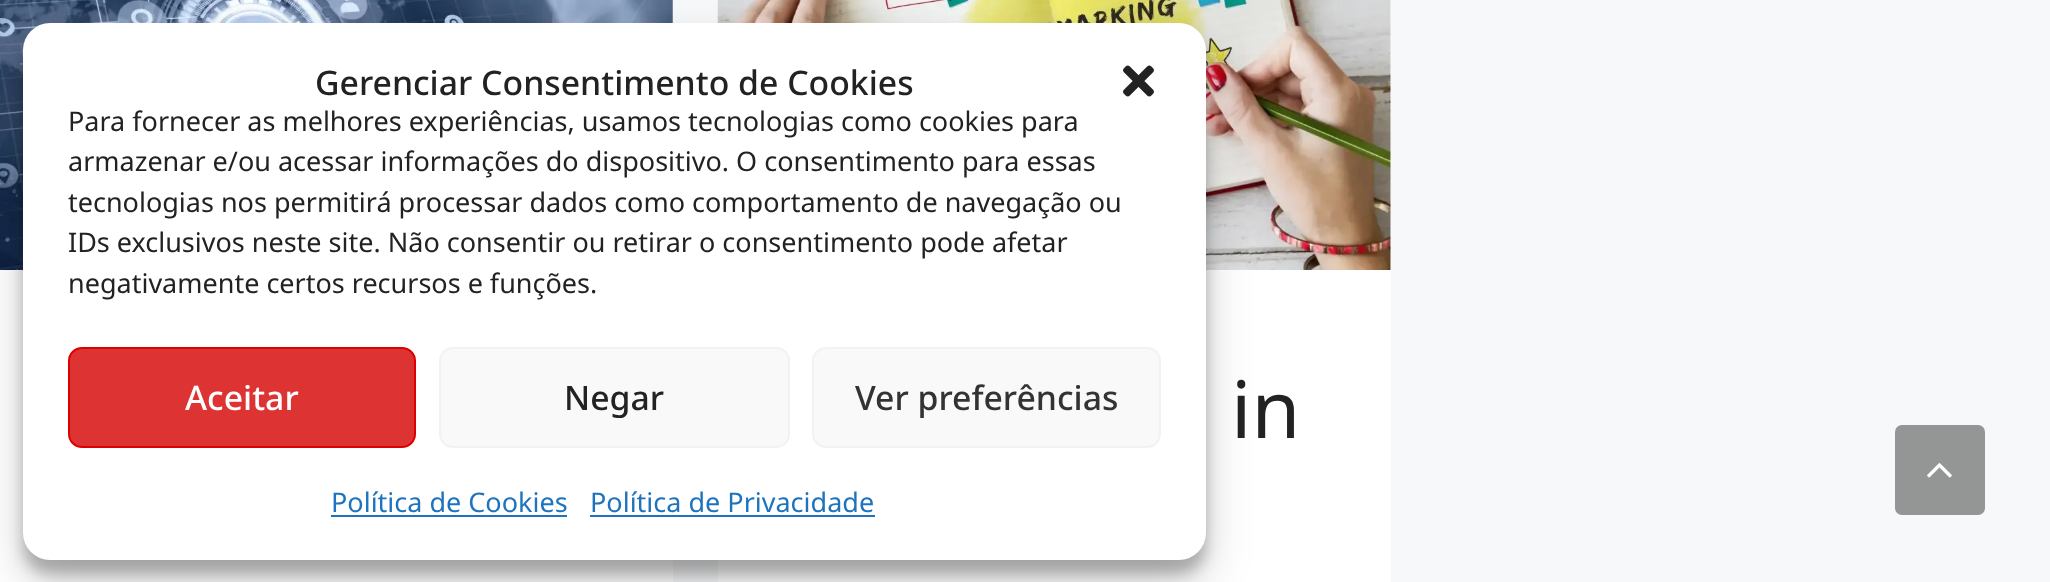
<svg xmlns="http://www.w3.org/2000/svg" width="2050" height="582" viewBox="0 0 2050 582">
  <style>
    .t1 { font: 500 33.75px Noto Sans; fill: #222; }
    .t2 { font: 27px Noto Sans; fill: #222; }
    .t3 { font: 500 33.75px Noto Sans; fill: #fff; }
    .t4 { font: 500 33.75px Noto Sans; fill: #333; }
    .t5 { font: 27px Noto Sans; fill: #1e73be; }
    .t6 { font: 79px Noto Sans; fill: #222; }
  </style>
  <rect width="100%" height="100%" fill="#f7f8f9"/>
  <rect x="0" y="0" width="673" height="582" fill="#fff"/>
  <image x="0" y="0" width="673" height="270" href="images/2.png"/>
  <rect x="718" y="0" width="673" height="582" fill="#fff"/>
  <image x="717" y="0" width="674" height="270" href="images/3.png"/>
  <rect x="23" y="36" width="1183" height="538" rx="27" fill="#0000003b" filter="blur(7px)"/>
  <rect x="23" y="45" width="1183" height="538" rx="27" fill="#00000030" filter="blur(22.5px)"/>
  <rect x="23" y="23" width="1183" height="537" rx="27" fill="#fff"/>
  <text x="315" y="95" class="t1">Gerenciar Consentimento de Cookies</text>
  <image x="1123" y="65" width="31" height="32" href="images/1.png"/>
  <text x="68" y="131" class="t2">Para fornecer as melhores experiências, usamos tecnologias como cookies para</text>
  <text x="68" y="171" class="t2">armazenar e/ou acessar informações do dispositivo. O consentimento para essas</text>
  <text x="68" y="212" class="t2">tecnologias nos permitirá processar dados como comportamento de navegação ou</text>
  <text x="68" y="252" class="t2">IDs exclusivos neste site. Não consentir ou retirar o consentimento pode afetar</text>
  <text x="68" y="293" class="t2">negativamente certos recursos e funções.</text>
  <rect x="69" y="348" width="346" height="99" rx="13" fill="#d33" stroke="#d00" stroke-width="2"/>
  <text x="185" y="410" class="t3">Aceitar</text>
  <rect x="440" y="348" width="349" height="99" rx="13" fill="#f9f9f9" stroke="#f2f2f2" stroke-width="2"/>
  <text x="564" y="410" class="t1">Negar</text>
  <rect x="813" y="348" width="347" height="99" rx="13" fill="#f9f9f9" stroke="#f2f2f2" stroke-width="2"/>
  <text x="855" y="410" class="t4">Ver preferências</text>
  <text x="331" y="512" class="t5">Política de Cookies</text>
  <rect x="331" y="515" width="236" height="2" fill="#1e73be"/>
  <text x="590" y="512" class="t5">Política de Privacidade</text>
  <rect x="590" y="515" width="285" height="2" fill="#1e73be"/>
  <text x="1231" y="438" class="t6">in</text>
  <rect x="1895" y="425" width="90" height="90" rx="7" fill="#949595"/>
  <image x="1927" y="463" width="25" height="15" href="images/4.png"/>
</svg>
